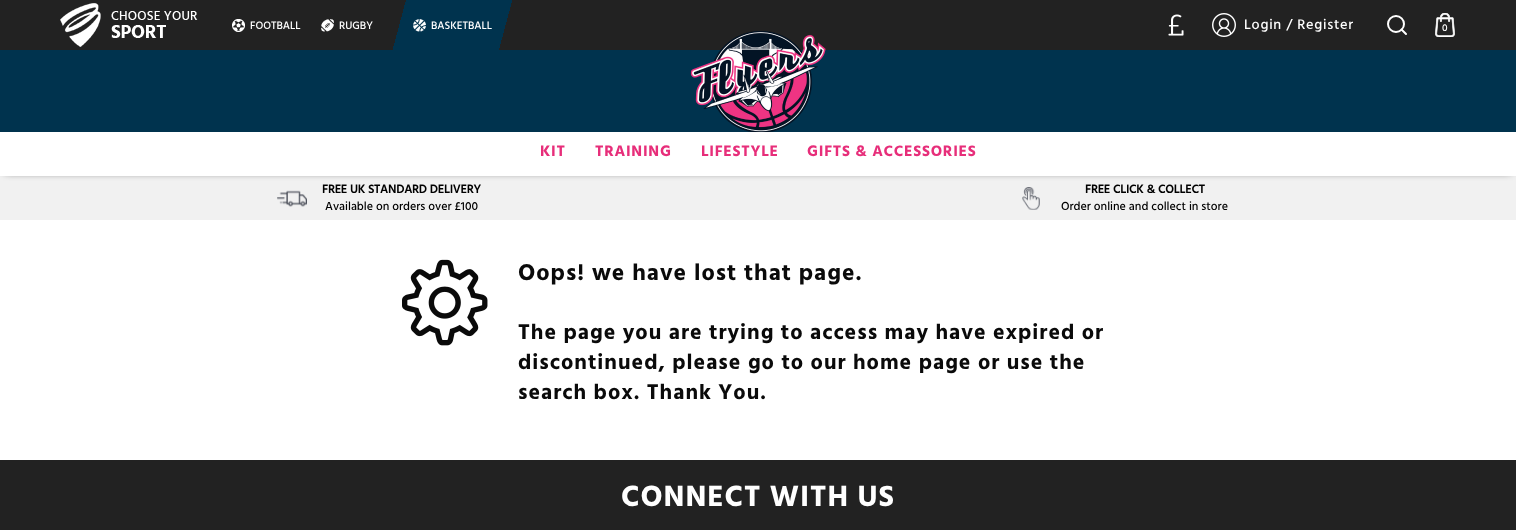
<svg xmlns="http://www.w3.org/2000/svg" width="1516" height="530" viewBox="0 0 1516 530">
  <style>
    .t1 { font: 500 10.75px Hind Guntur; fill: #fff; }
    .t2 { font: 500 14px Hind Guntur; letter-spacing: 0.75px; fill: #fff; }
    .t3 { font: 500 10px Hind Guntur; fill: #fff; }
    .t4 { font: bold 15.5px Hind Guntur; letter-spacing: 0.75px; fill: #e72e7a; }
    .t5 { font: bold 11.75px 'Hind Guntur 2'; fill: #000; }
    .t6 { font: 500 11.75px Hind Guntur; fill: #000; }
    .t7 { font: bold 23.5px Hind Guntur; letter-spacing: 1px; fill: #0a0a0a; }
    .t8 { font: bold 21.75px Hind Guntur; letter-spacing: 1px; fill: #0a0a0a; }
    .t9 { font: bold 30px Hind Guntur; letter-spacing: 1px; fill: #fff; }
  </style>
  <defs>
    <linearGradient id="g1" gradientUnits="userSpaceOnUse" x1="623" y1="71" x2="381" y2="6"><stop offset="0" stop-color="#00334e"/><stop offset="0.41" stop-color="#00334e"/><stop offset="0.41" stop-color="#222"/><stop offset="0.5" stop-color="#222"/><stop offset="0.5" stop-color="#00334e"/><stop offset="0.91" stop-color="#00334e"/><stop offset="0.91" stop-color="#222"/><stop offset="1" stop-color="#222"/></linearGradient>
  </defs>
  <rect width="100%" height="100%" fill="#fff"/>
  <rect x="0" y="176" width="1516" height="44" fill="#f1f1f1"/>
  <rect x="5" y="5" width="1506" height="166" fill="#000" filter="blur(4px)"/>
  <rect x="0" y="0" width="1516" height="50" fill="#222"/>
  <image x="60" y="3" width="138" height="44" href="images/1.png"/>
  <image x="232" y="19" width="13" height="13" href="images/2.png"/>
  <text x="250" y="29" class="t1">FOOTBALL</text>
  <image x="321" y="19" width="13" height="13" href="images/3.png"/>
  <text x="339" y="29" class="t1">RUGBY</text>
  <rect x="393" y="0" width="119" height="50" fill="url(#g1)"/>
  <image x="413" y="19" width="13" height="13" href="images/4.png"/>
  <text x="431" y="29" class="t1">BASKETBALL</text>
  <image x="1168" y="14" width="16" height="22" href="images/5.png"/>
  <image x="1212" y="13" width="24" height="24" href="images/6.png"/>
  <text x="1244" y="29" class="t2">Login / Register</text>
  <circle cx="1396" cy="24" r="8" fill="none" stroke="#fff" stroke-width="2"/>
  <path d="M1406 34L1401.5 29.5" fill="none" stroke="#fff" stroke-width="2" stroke-linecap="round" stroke-linejoin="round"/>
  <image x="1435" y="13" width="20" height="24" href="images/7.png"/>
  <text x="1442" y="31" class="t3">0</text>
  <rect x="0" y="50" width="1516" height="82" fill="#00334e"/>
  <image x="690" y="31" width="136" height="101" href="images/8.png"/>
  <rect x="0" y="132" width="1516" height="44" fill="#fff"/>
  <text x="540" y="156" class="t4">KIT</text>
  <text x="595" y="156" class="t4">TRAINING</text>
  <text x="701" y="156" class="t4">LIFESTYLE</text>
  <text x="807" y="156" class="t4">GIFTS &amp; ACCESSORIES</text>
  <image x="277" y="190" width="30" height="17" href="images/9.png"/>
  <text x="322" y="193" class="t5">FREE UK STANDARD DELIVERY</text>
  <text x="325" y="210" class="t6">Available on orders over £100</text>
  <image x="1022" y="187" width="18" height="23" href="images/10.png"/>
  <text x="1085" y="193" class="t5">FREE CLICK &amp; COLLECT</text>
  <text x="1061" y="210" class="t6">Order online and collect in store</text>
  <image x="402" y="259" width="86" height="87" href="images/11.png"/>
  <text x="518" y="280" class="t7">Oops! we have lost that page.</text>
  <text x="518" y="339" class="t8">The page you are trying to access may have expired or</text>
  <text x="518" y="369" class="t8">discontinued, please go to our home page or use the</text>
  <text x="518" y="399" class="t8">search box. Thank You.</text>
  <rect x="0" y="460" width="1516" height="70" fill="#222"/>
  <text x="621" y="506" class="t9">CONNECT WITH US</text>
</svg>
